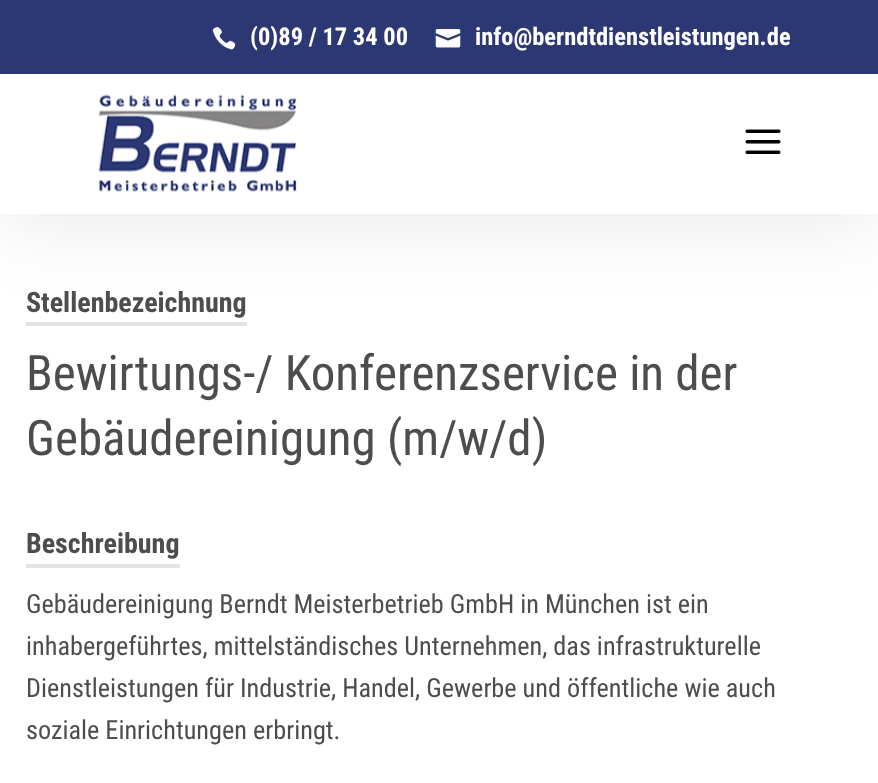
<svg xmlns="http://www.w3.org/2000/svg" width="878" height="783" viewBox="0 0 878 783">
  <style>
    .t1 { font: bold 24.5px Roboto Condensed; fill: #fff; }
    .t2 { font: bold 28px Roboto Condensed; fill: #4d4d4d; }
    .t3 { font: 49px Roboto Condensed; fill: #4d4d4d; }
    .t4 { font: 26.25px Roboto Condensed; fill: #4d4d4d; }
  </style>
  <rect width="100%" height="100%" fill="#fff"/>
  <rect x="26" y="322" width="221" height="4" fill="#e4e4e4"/>
  <rect x="0" y="74" width="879" height="140" fill="#0000001a" filter="blur(44px)"/>
  <rect x="0" y="74" width="878" height="140" fill="#fff"/>
  <image x="98" y="94" width="199" height="98" href="images/1.png"/>
  <image x="745" y="129" width="36" height="25" href="images/2.png"/>
  <rect x="0" y="0" width="878" height="74" fill="#2c3873"/>
  <image x="212" y="27" width="24" height="23" href="images/3.png"/>
  <text x="250" y="45" class="t1">(0)89 / 17 34 00</text>
  <image x="435" y="29" width="26" height="19" href="images/4.png"/>
  <text x="475" y="45" class="t1">info@berndtdienstleistungen.de</text>
  <text x="26" y="312" class="t2">Stellenbezeichnung</text>
  <text x="26" y="390" class="t3">Bewirtungs-/ Konferenzservice in der</text>
  <text x="26" y="455" class="t3">Gebäudereinigung (m/w/d)</text>
  <text x="26" y="553" class="t2">Beschreibung</text>
  <rect x="26" y="564" width="154" height="4" fill="#e4e4e4"/>
  <text x="26" y="613" class="t4">Gebäudereinigung Berndt Meisterbetrieb GmbH in München ist ein</text>
  <text x="26" y="655" class="t4">inhabergeführtes, mittelständisches Unternehmen, das infrastrukturelle</text>
  <text x="26" y="697" class="t4">Dienstleistungen für Industrie, Handel, Gewerbe und öffentliche wie auch</text>
  <text x="26" y="739" class="t4">soziale Einrichtungen erbringt.</text>
</svg>
